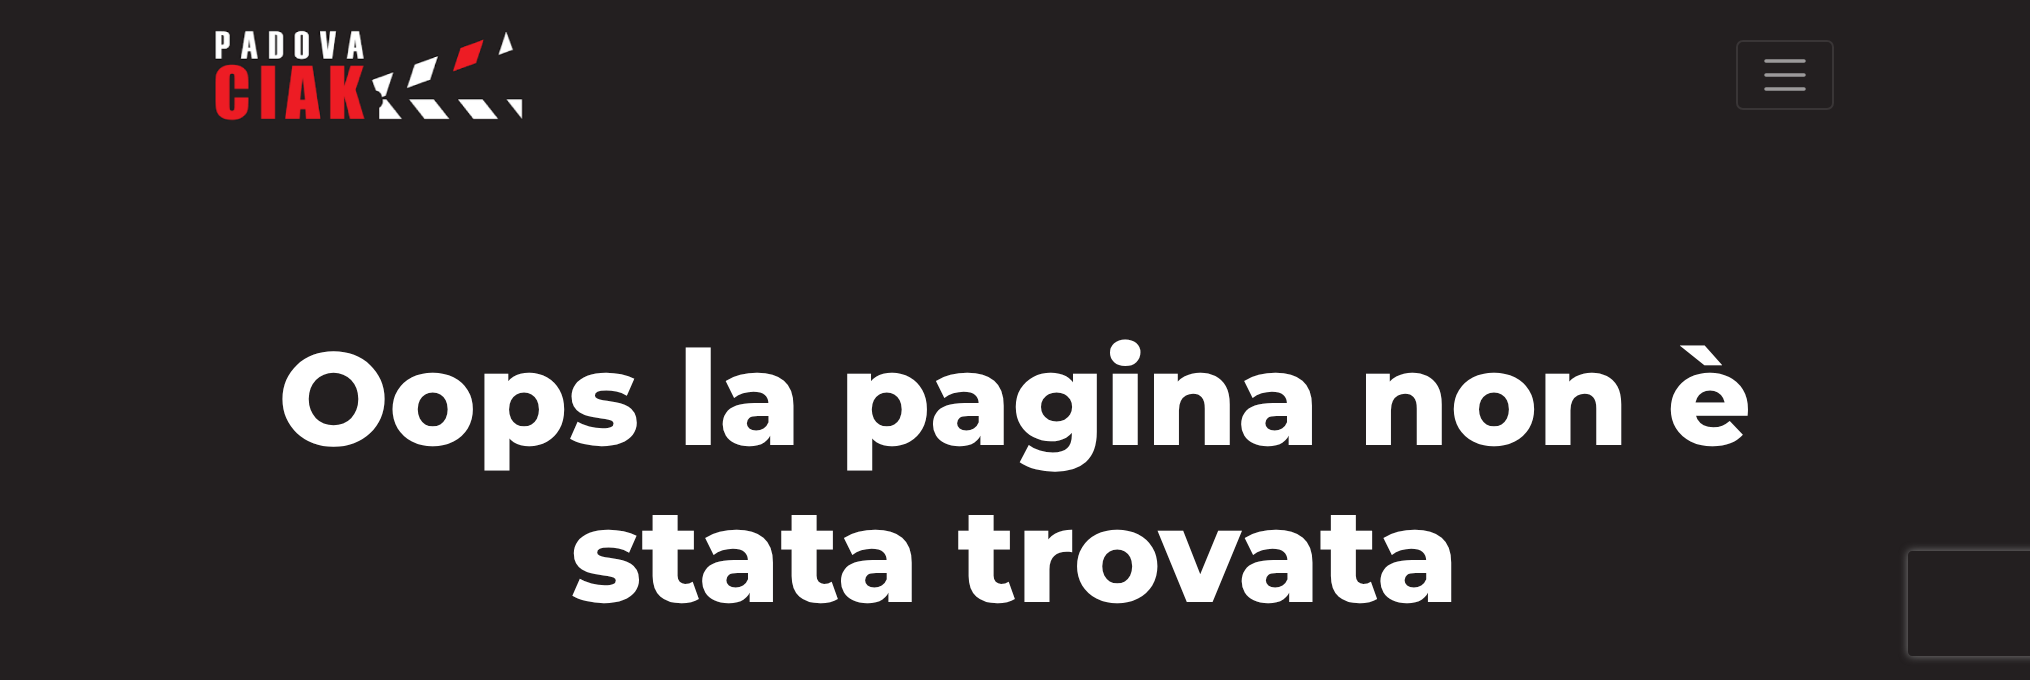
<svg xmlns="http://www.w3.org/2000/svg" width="2030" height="680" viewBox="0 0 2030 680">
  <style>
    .t1 { font: 800 131.25px Montserrat; fill: #fff; }
  </style>
  <defs>
    <clipPath id="clip1"><path d="M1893 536H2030V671H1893ZM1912 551H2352C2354 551 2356 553 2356 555V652C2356 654 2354 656 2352 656H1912C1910 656 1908 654 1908 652V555C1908 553 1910 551 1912 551Z" clip-rule="evenodd"/></clipPath>
  </defs>
  <rect width="100%" height="100%" fill="#231f20"/>
  <image x="214" y="30" width="310" height="91" href="images/1.png"/>
  <rect x="1737" y="41" width="96" height="68" rx="6" fill="none" stroke="#393536" stroke-width="2"/>
  <path d="M1766 61H1804M1766 75H1804M1766 89H1804" fill="none" stroke="#9c9a9b" stroke-width="3.5" stroke-linecap="round"/>
  <text x="278" y="445" class="t1">Oops la pagina non è</text>
  <text x="570" y="602" class="t1">stata trovata</text>
  <g clip-path="url(#clip1)">
    <rect x="1908" y="551" width="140" height="105" rx="4" fill="#808080" filter="blur(4.5px)"/>
  </g>
</svg>
